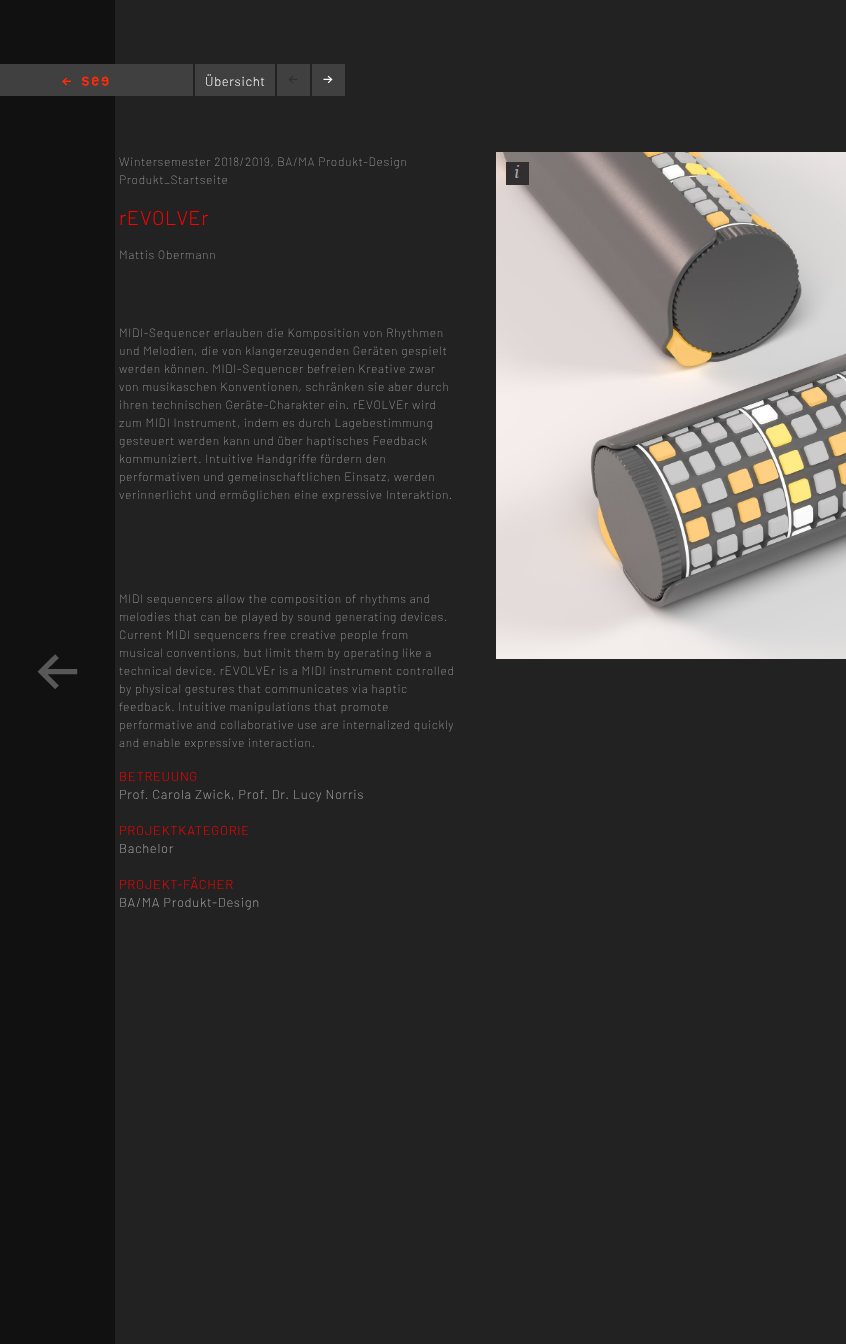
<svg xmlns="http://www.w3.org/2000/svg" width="846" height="1344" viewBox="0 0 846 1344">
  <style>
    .t1 { font: 300 13px Barlow; letter-spacing: 0.65px; fill: #fff; }
    .t2 { font: 200 12px Barlow; letter-spacing: 0.65px; fill: #999; }
    .t3 { font: 300 20px Barlow; letter-spacing: 0.65px; fill: #f00; }
    .t4 { font: 300 13px Barlow; letter-spacing: 0.65px; fill: #f00; }
    .t5 { font: 300 13px Barlow; letter-spacing: 0.65px; fill: #999; }
  </style>
  <rect width="100%" height="100%" fill="#222"/>
  <rect x="0" y="0" width="115" height="1344" fill="#111"/>
  <image x="37" y="654" width="41" height="35" href="images/1.png"/>
  <rect x="0" y="64" width="193" height="32" fill="#404040"/>
  <image x="62" y="76" width="47" height="10" href="images/2.png"/>
  <rect x="195" y="64" width="80" height="32" fill="#404040"/>
  <text x="205" y="86" class="t1">Übersicht</text>
  <rect x="277" y="64" width="33" height="32" fill="#404040"/>
  <image x="288" y="76" width="10" height="7" href="images/3.png"/>
  <rect x="312" y="64" width="33" height="32" fill="#404040"/>
  <image x="323" y="75" width="10" height="8" href="images/4.png"/>
  <text x="119" y="166" class="t2">Wintersemester 2018/2019, BA/MA Produkt-Design</text>
  <text x="119" y="184" class="t2">Produkt_Startseite</text>
  <text x="119" y="225" class="t3">rEVOLVEr</text>
  <text x="119" y="259" class="t2">Mattis Obermann</text>
  <text x="119" y="337" class="t2">MIDI-Sequencer erlauben die Komposition von Rhythmen</text>
  <text x="119" y="355" class="t2">und Melodien, die von klangerzeugenden Geräten gespielt</text>
  <text x="119" y="373" class="t2">werden können. MIDI-Sequencer befreien Kreative zwar</text>
  <text x="119" y="391" class="t2">von musikaschen Konventionen, schränken sie aber durch</text>
  <text x="119" y="409" class="t2">ihren technischen Geräte-Charakter ein. rEVOLVEr wird</text>
  <text x="119" y="427" class="t2">zum MIDI Instrument, indem es durch Lagebestimmung</text>
  <text x="119" y="445" class="t2">gesteuert werden kann und über haptisches Feedback</text>
  <text x="119" y="463" class="t2">kommuniziert. Intuitive Handgriffe fördern den</text>
  <text x="119" y="481" class="t2">performativen und gemeinschaftlichen Einsatz, werden</text>
  <text x="119" y="499" class="t2">verinnerlicht und ermöglichen eine expressive Interaktion.</text>
  <text x="119" y="603" class="t2">MIDI sequencers allow the composition of rhythms and</text>
  <text x="119" y="621" class="t2">melodies that can be played by sound generating devices.</text>
  <text x="119" y="639" class="t2">Current MIDI sequencers free creative people from</text>
  <text x="119" y="657" class="t2">musical conventions, but limit them by operating like a</text>
  <text x="119" y="675" class="t2">technical device. rEVOLVEr is a MIDI instrument controlled</text>
  <text x="119" y="693" class="t2">by physical gestures that communicates via haptic</text>
  <text x="119" y="711" class="t2">feedback. Intuitive manipulations that promote</text>
  <text x="119" y="729" class="t2">performative and collaborative use are internalized quickly</text>
  <text x="119" y="747" class="t2">and enable expressive interaction.</text>
  <text x="119" y="781" class="t4">BETREUUNG</text>
  <text x="119" y="799" class="t5">Prof. Carola Zwick, Prof. Dr. Lucy Norris</text>
  <text x="119" y="835" class="t4">PROJEKTKATEGORIE</text>
  <text x="119" y="853" class="t5">Bachelor</text>
  <text x="119" y="889" class="t4">PROJEKT-FÄCHER</text>
  <text x="119" y="907" class="t5">BA/MA Produkt-Design</text>
  <image x="496" y="152" width="350" height="507" href="images/5.png"/>
  <image x="506" y="162" width="23" height="23" href="images/6.png"/>
</svg>
